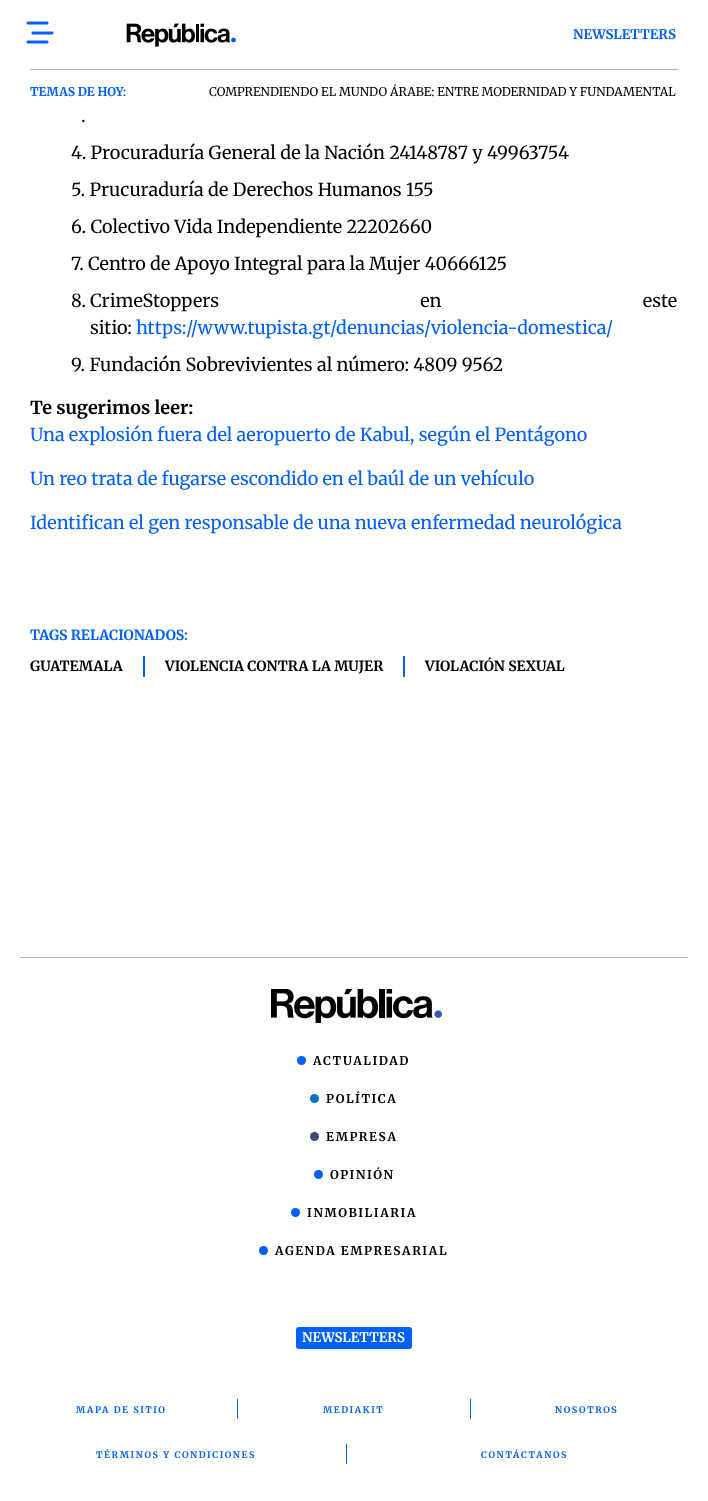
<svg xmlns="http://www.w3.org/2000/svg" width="708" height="1501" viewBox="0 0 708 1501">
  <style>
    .t1 { font: bold 13.25px Merriweather; fill: #005ff5; }
    .t2 { font: bold 12px Merriweather; fill: #005ff5; }
    .t3 { font: 12px Merriweather; fill: #000; }
    .t4 { font: 18px Merriweather; fill: #000; }
    .t5 { font: 18px Merriweather; fill: #005ff5; }
    .t6 { font: bold 18px Merriweather; fill: #000; }
    .t7 { font: bold 14px Merriweather; fill: #005ff5; }
    .t8 { font: bold 14px Merriweather; fill: #000; }
    .t9 { font: bold 12px Merriweather; letter-spacing: 1.6px; fill: #000; }
    .t10 { font: bold 13.25px Merriweather; fill: #fff; }
    .t11 { font: bold 9px Merriweather; letter-spacing: 1.6px; fill: #005ff5; }
  </style>
  <rect width="100%" height="100%" fill="#fff"/>
  <image x="26" y="21" width="28" height="23" href="images/1.png"/>
  <image x="126" y="23" width="110" height="24" href="images/2.png"/>
  <text x="573" y="39" class="t1">NEWSLETTERS</text>
  <rect x="30" y="69" width="648" height="1" fill="#b1b1b1"/>
  <text x="30" y="96" class="t2">TEMAS DE HOY:</text>
  <text x="209" y="96" class="t3">COMPRENDIENDO EL MUNDO ÁRABE: ENTRE MODERNIDAD Y FUNDAMENTAL</text>
  <text x="81" y="122" class="t4">.</text>
  <text x="71" y="159" class="t4">4. Procuraduría General de la Nación 24148787 y 49963754</text>
  <text x="71" y="196" class="t4">5. Prucuraduría de Derechos Humanos 155</text>
  <text x="71" y="233" class="t4">6. Colectivo Vida Independiente 22202660</text>
  <text x="71" y="270" class="t4">7. Centro de Apoyo Integral para la Mujer 40666125</text>
  <text x="71" y="307" class="t4">8.</text>
  <text x="90" y="307" word-spacing="197" class="t4">CrimeStoppers en este</text>
  <text x="90" y="334" class="t4">sitio:</text>
  <text x="136" y="334" class="t5">https://www.tupista.gt/denuncias/violencia-domestica/</text>
  <text x="71" y="371" class="t4">9. Fundación Sobrevivientes al número: 4809 9562</text>
  <text x="30" y="414" class="t6">Te sugerimos leer:</text>
  <text x="30" y="441" class="t5">Una explosión fuera del aeropuerto de Kabul, según el Pentágono</text>
  <text x="30" y="485" class="t5">Un reo trata de fugarse escondido en el baúl de un vehículo</text>
  <text x="30" y="529" class="t5">Identifican el gen responsable de una nueva enfermedad neurológica</text>
  <text x="30" y="640" class="t7">TAGS RELACIONADOS:</text>
  <rect x="143" y="656" width="2" height="21" fill="#005ff5"/>
  <text x="30" y="671" class="t8">GUATEMALA</text>
  <rect x="403" y="656" width="2" height="21" fill="#005ff5"/>
  <text x="165" y="671" class="t8">VIOLENCIA CONTRA LA MUJER</text>
  <text x="425" y="671" class="t8">VIOLACIÓN SEXUAL</text>
  <rect x="20" y="957" width="668" height="1" fill="#b7b7b7"/>
  <image x="271" y="989" width="171" height="34" href="images/3.png"/>
  <circle cx="301.5" cy="1060.5" r="4.5" fill="#005ff5"/>
  <text x="313" y="1065" class="t9">ACTUALIDAD</text>
  <circle cx="314.5" cy="1098.5" r="4.5" fill="#0071cb"/>
  <text x="326" y="1103" class="t9">POLÍTICA</text>
  <circle cx="314.5" cy="1136.5" r="4.5" fill="#3d4d77"/>
  <text x="326" y="1141" class="t9">EMPRESA</text>
  <circle cx="318.5" cy="1174.5" r="4.5" fill="#005ff5"/>
  <text x="330" y="1179" class="t9">OPINIÓN</text>
  <circle cx="295.5" cy="1212.5" r="4.5" fill="#005ff5"/>
  <text x="307" y="1217" class="t9">INMOBILIARIA</text>
  <circle cx="263.5" cy="1250.5" r="4.5" fill="#005ff5"/>
  <text x="275" y="1255" class="t9">AGENDA EMPRESARIAL</text>
  <rect x="296" y="1327" width="116" height="22" rx="3" fill="#005ff5"/>
  <text x="302" y="1342" class="t10">NEWSLETTERS</text>
  <text x="76" y="1413" class="t11">MAPA DE SITIO</text>
  <rect x="237" y="1399" width="1" height="20" fill="#005ff5"/>
  <text x="323" y="1413" class="t11">MEDIAKIT</text>
  <rect x="470" y="1399" width="1" height="20" fill="#005ff5"/>
  <text x="555" y="1413" class="t11">NOSOTROS</text>
  <text x="96" y="1458" class="t11">TÉRMINOS Y CONDICIONES</text>
  <rect x="346" y="1444" width="1" height="20" fill="#005ff5"/>
  <text x="481" y="1458" class="t11">CONTÁCTANOS</text>
</svg>
